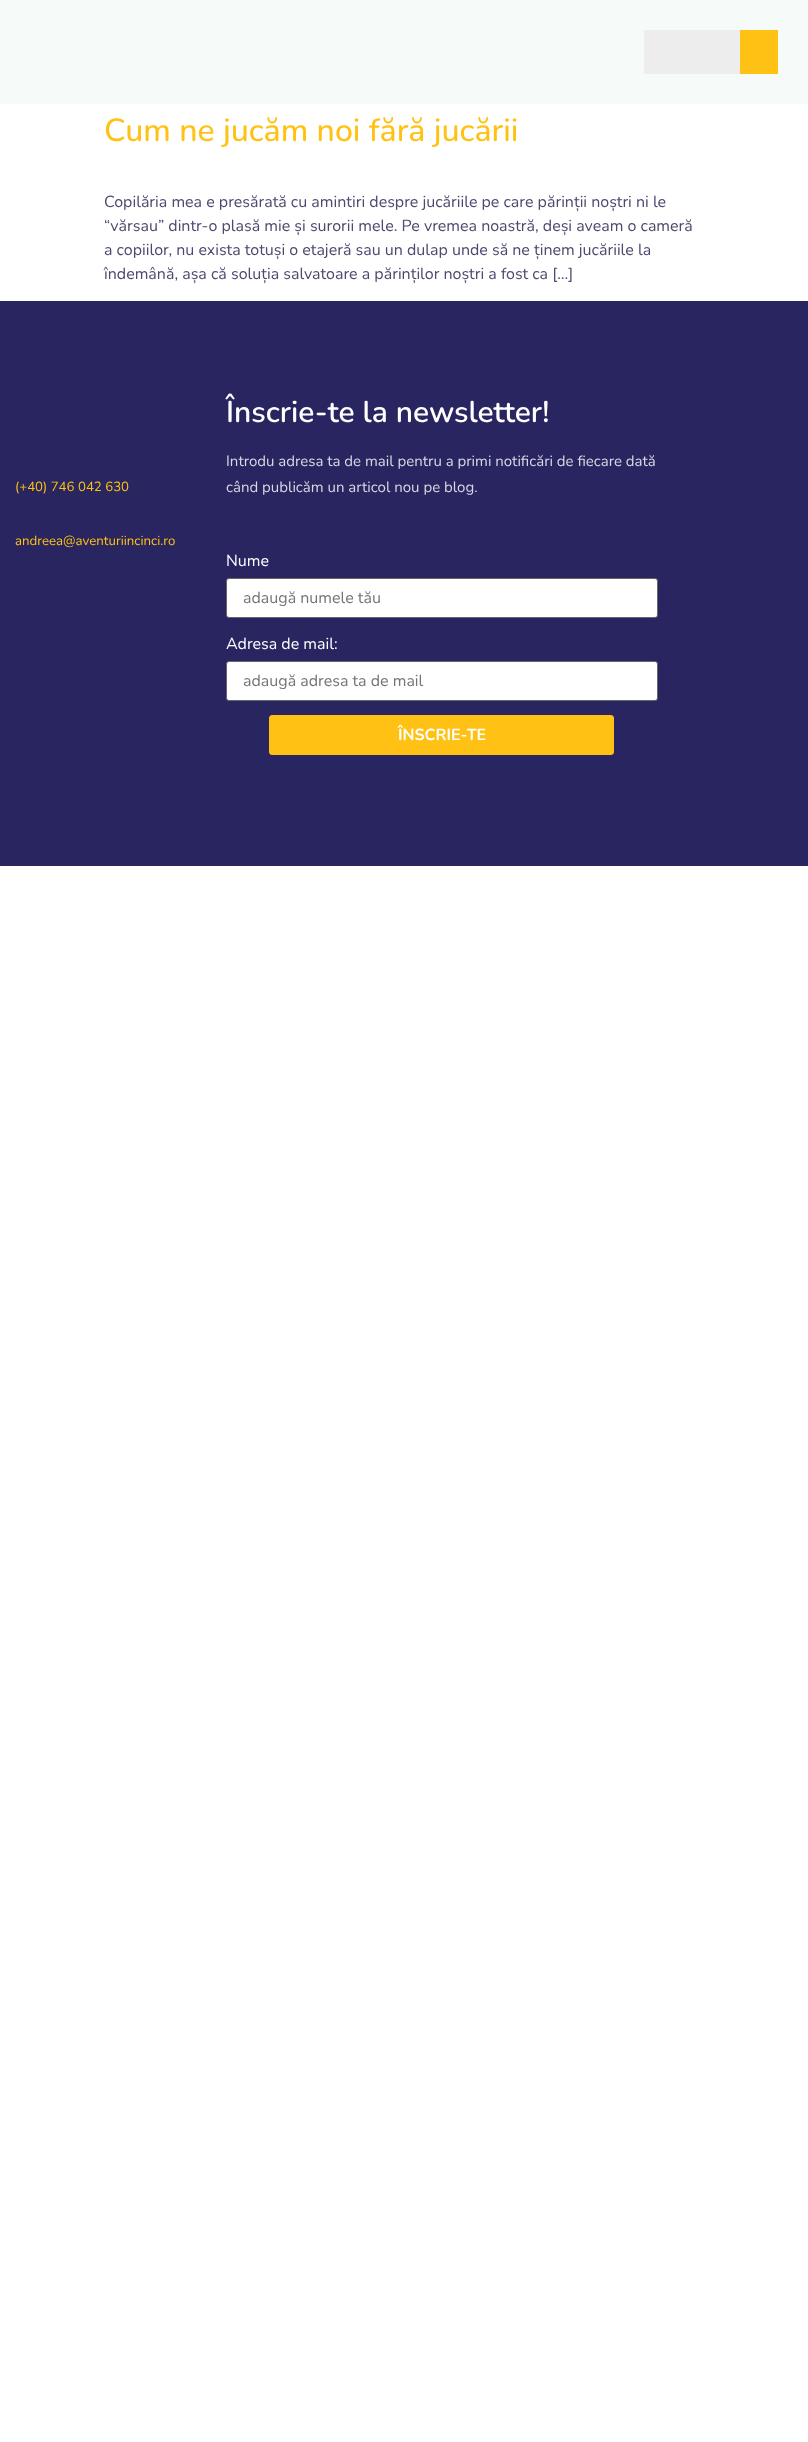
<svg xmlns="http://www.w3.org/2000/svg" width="808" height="2442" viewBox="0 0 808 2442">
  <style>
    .t1 { font: 500 32px Nunito; fill: #ffc214; }
    .t2 { font: 16px Nunito; fill: #4d4a6f; }
    .t3 { font: 13.25px Nunito; fill: #ffc214; }
    .t4 { font: 600 30px Nunito; fill: #fff; }
    .t5 { font: 15px Nunito; fill: #d8d8e2; }
    .t6 { font: 16px Nunito; fill: #fff; }
    .t7 { font: 16px Nunito; fill: #757575; }
    .t8 { font: bold 16px Nunito; fill: #fff; }
  </style>
  <rect width="100%" height="100%" fill="#fff"/>
  <rect x="0" y="0" width="808" height="104" fill="#f6fbfa"/>
  <rect x="644" y="30" width="96" height="44" fill="#ededed"/>
  <rect x="740" y="30" width="38" height="44" fill="#ffc214"/>
  <text x="104" y="141" class="t1">Cum ne jucăm noi fără jucării</text>
  <text x="104" y="207" class="t2">Copilăria mea e presărată cu amintiri despre jucăriile pe care părinții noștri ni le</text>
  <text x="104" y="231" class="t2">“vărsau” dintr-o plasă mie și surorii mele. Pe vremea noastră, deși aveam o cameră</text>
  <text x="104" y="255" class="t2">a copiilor, nu exista totuși o etajeră sau un dulap unde să ne ținem jucăriile la</text>
  <text x="104" y="279" class="t2">îndemână, așa că soluția salvatoare a părinților noștri a fost ca […]</text>
  <rect x="0" y="301" width="808" height="565" fill="#282560"/>
  <text x="15" y="491" class="t3">(+40) 746 042 630</text>
  <text x="15" y="545" class="t3">andreea@aventuriincinci.ro</text>
  <text x="226" y="422" class="t4">Înscrie-te la newsletter!</text>
  <text x="226" y="466" class="t5">Introdu adresa ta de mail pentru a primi notificări de fiecare dată</text>
  <text x="226" y="492" class="t5">când publicăm un articol nou pe blog.</text>
  <text x="226" y="566" class="t6">Nume</text>
  <rect x="226.5" y="578.5" width="431" height="39" rx="2.5" fill="#fff" stroke="#666"/>
  <text x="243" y="603" class="t7">adaugă numele tău</text>
  <text x="226" y="649" class="t6">Adresa de mail:</text>
  <rect x="226.5" y="661.5" width="431" height="39" rx="2.5" fill="#fff" stroke="#666"/>
  <text x="243" y="686" class="t7">adaugă adresa ta de mail</text>
  <rect x="269.5" y="715.5" width="344" height="39" rx="2.5" fill="#ffc214" stroke="#ffc214"/>
  <text x="398" y="740" class="t8">ÎNSCRIE-TE</text>
</svg>
